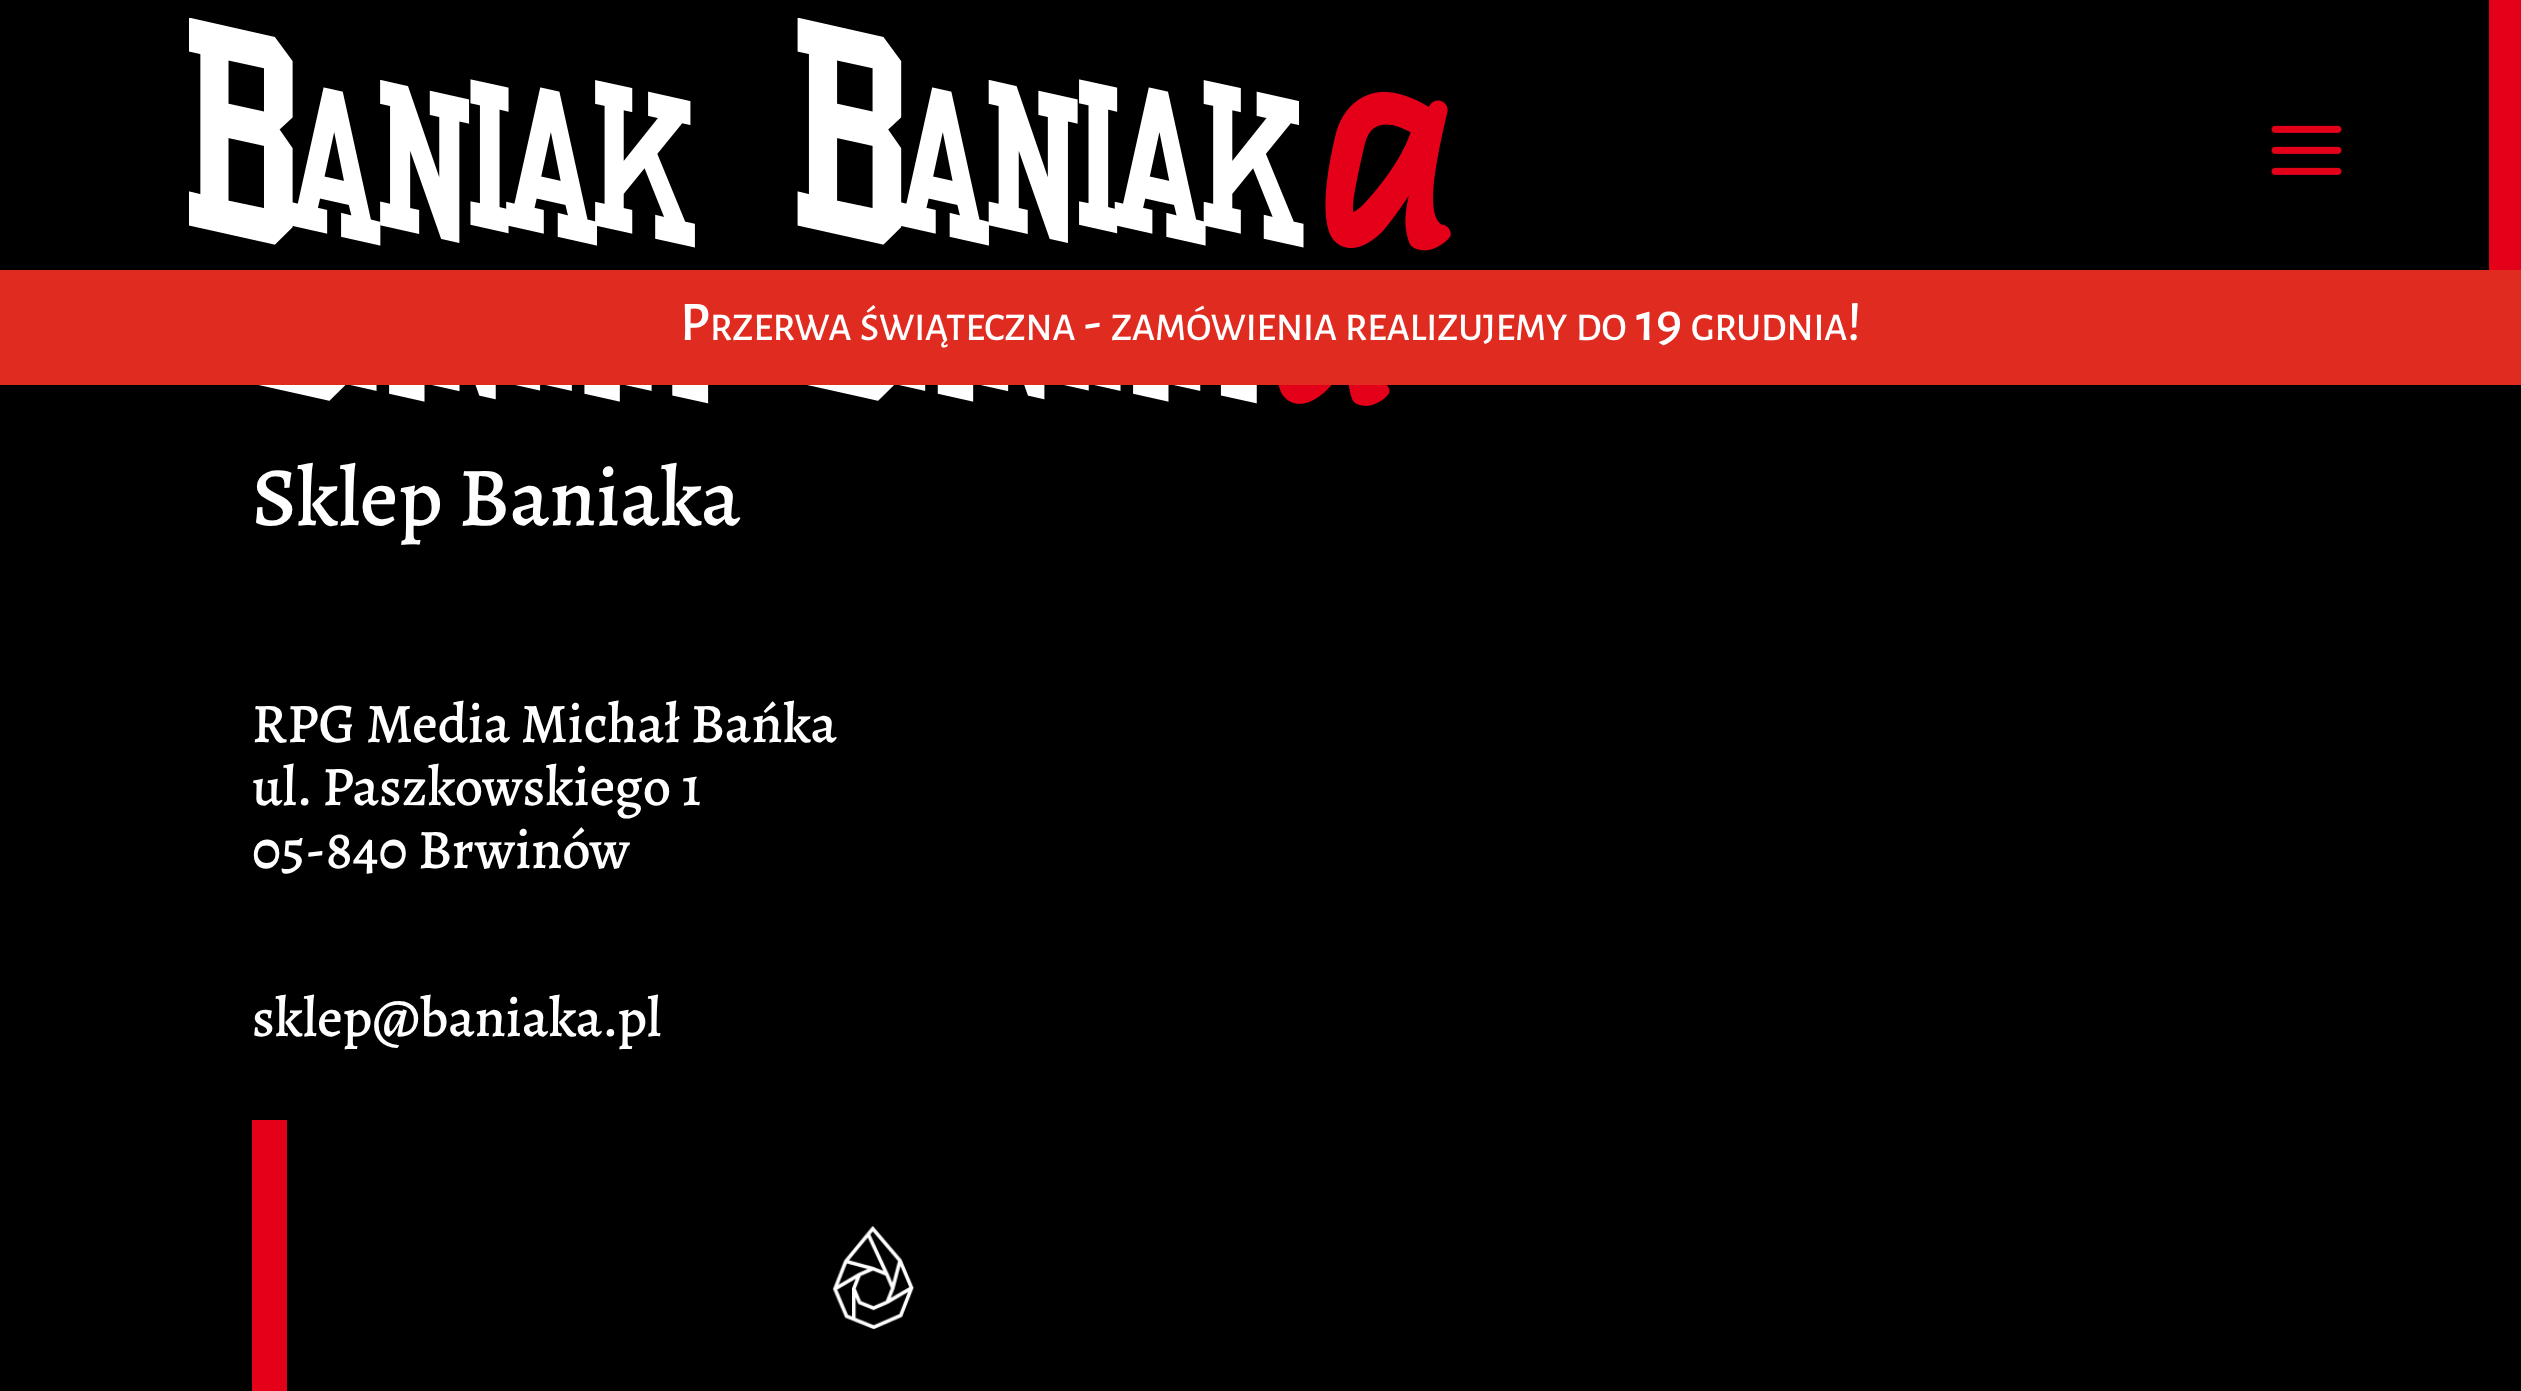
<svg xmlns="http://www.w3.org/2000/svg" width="2521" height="1391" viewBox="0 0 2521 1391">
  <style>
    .t1 { font: 500 56px Alegreya Sans; fill: #fff; }
    .t2 { font: 500 39.25px Alegreya Sans; fill: #fff; }
    .t3 { font: 500 84px Alegreya; fill: #fff; }
    .t4 { font: 500 56px Alegreya; fill: #fff; }
  </style>
  <rect width="100%" height="100%" fill="#000"/>
  <image x="189" y="18" width="1262" height="233" href="images/1.png"/>
  <rect x="2489" y="0" width="32" height="270" fill="#e50019"/>
  <image x="2271" y="125" width="71" height="50" href="images/2.png"/>
  <rect x="0" y="270" width="2521" height="115" fill="#e02b20"/>
  <text x="680" y="340" class="t1">P</text>
  <text x="710" y="340" class="t2">RZERWA</text>
  <text x="860" y="340" class="t2">ŚWIĄTECZNA</text>
  <text x="1084" y="340" class="t1">-</text>
  <text x="1111" y="340" class="t2">ZAMÓWIENIA</text>
  <text x="1345" y="340" class="t2">REALIZUJEMY</text>
  <text x="1576" y="340" class="t2">DO</text>
  <text x="1636" y="340" class="t1">19</text>
  <text x="1691" y="340" class="t2">GRUDNIA</text>
  <text x="1847" y="340" class="t1">!</text>
  <image x="258" y="385" width="1132" height="21" href="images/3.png"/>
  <text x="252" y="525" class="t3">Sklep Baniaka</text>
  <text x="252" y="742" class="t4">RPG Media Michał Bańka</text>
  <text x="252" y="805" class="t4">ul. Paszkowskiego 1</text>
  <text x="252" y="868" class="t4">05-840 Brwinów</text>
  <text x="252" y="1036" class="t4">sklep@baniaka.pl</text>
  <rect x="252" y="1120" width="35" height="271" fill="#e50019"/>
  <image x="832" y="1226" width="83" height="104" href="images/4.png"/>
</svg>
